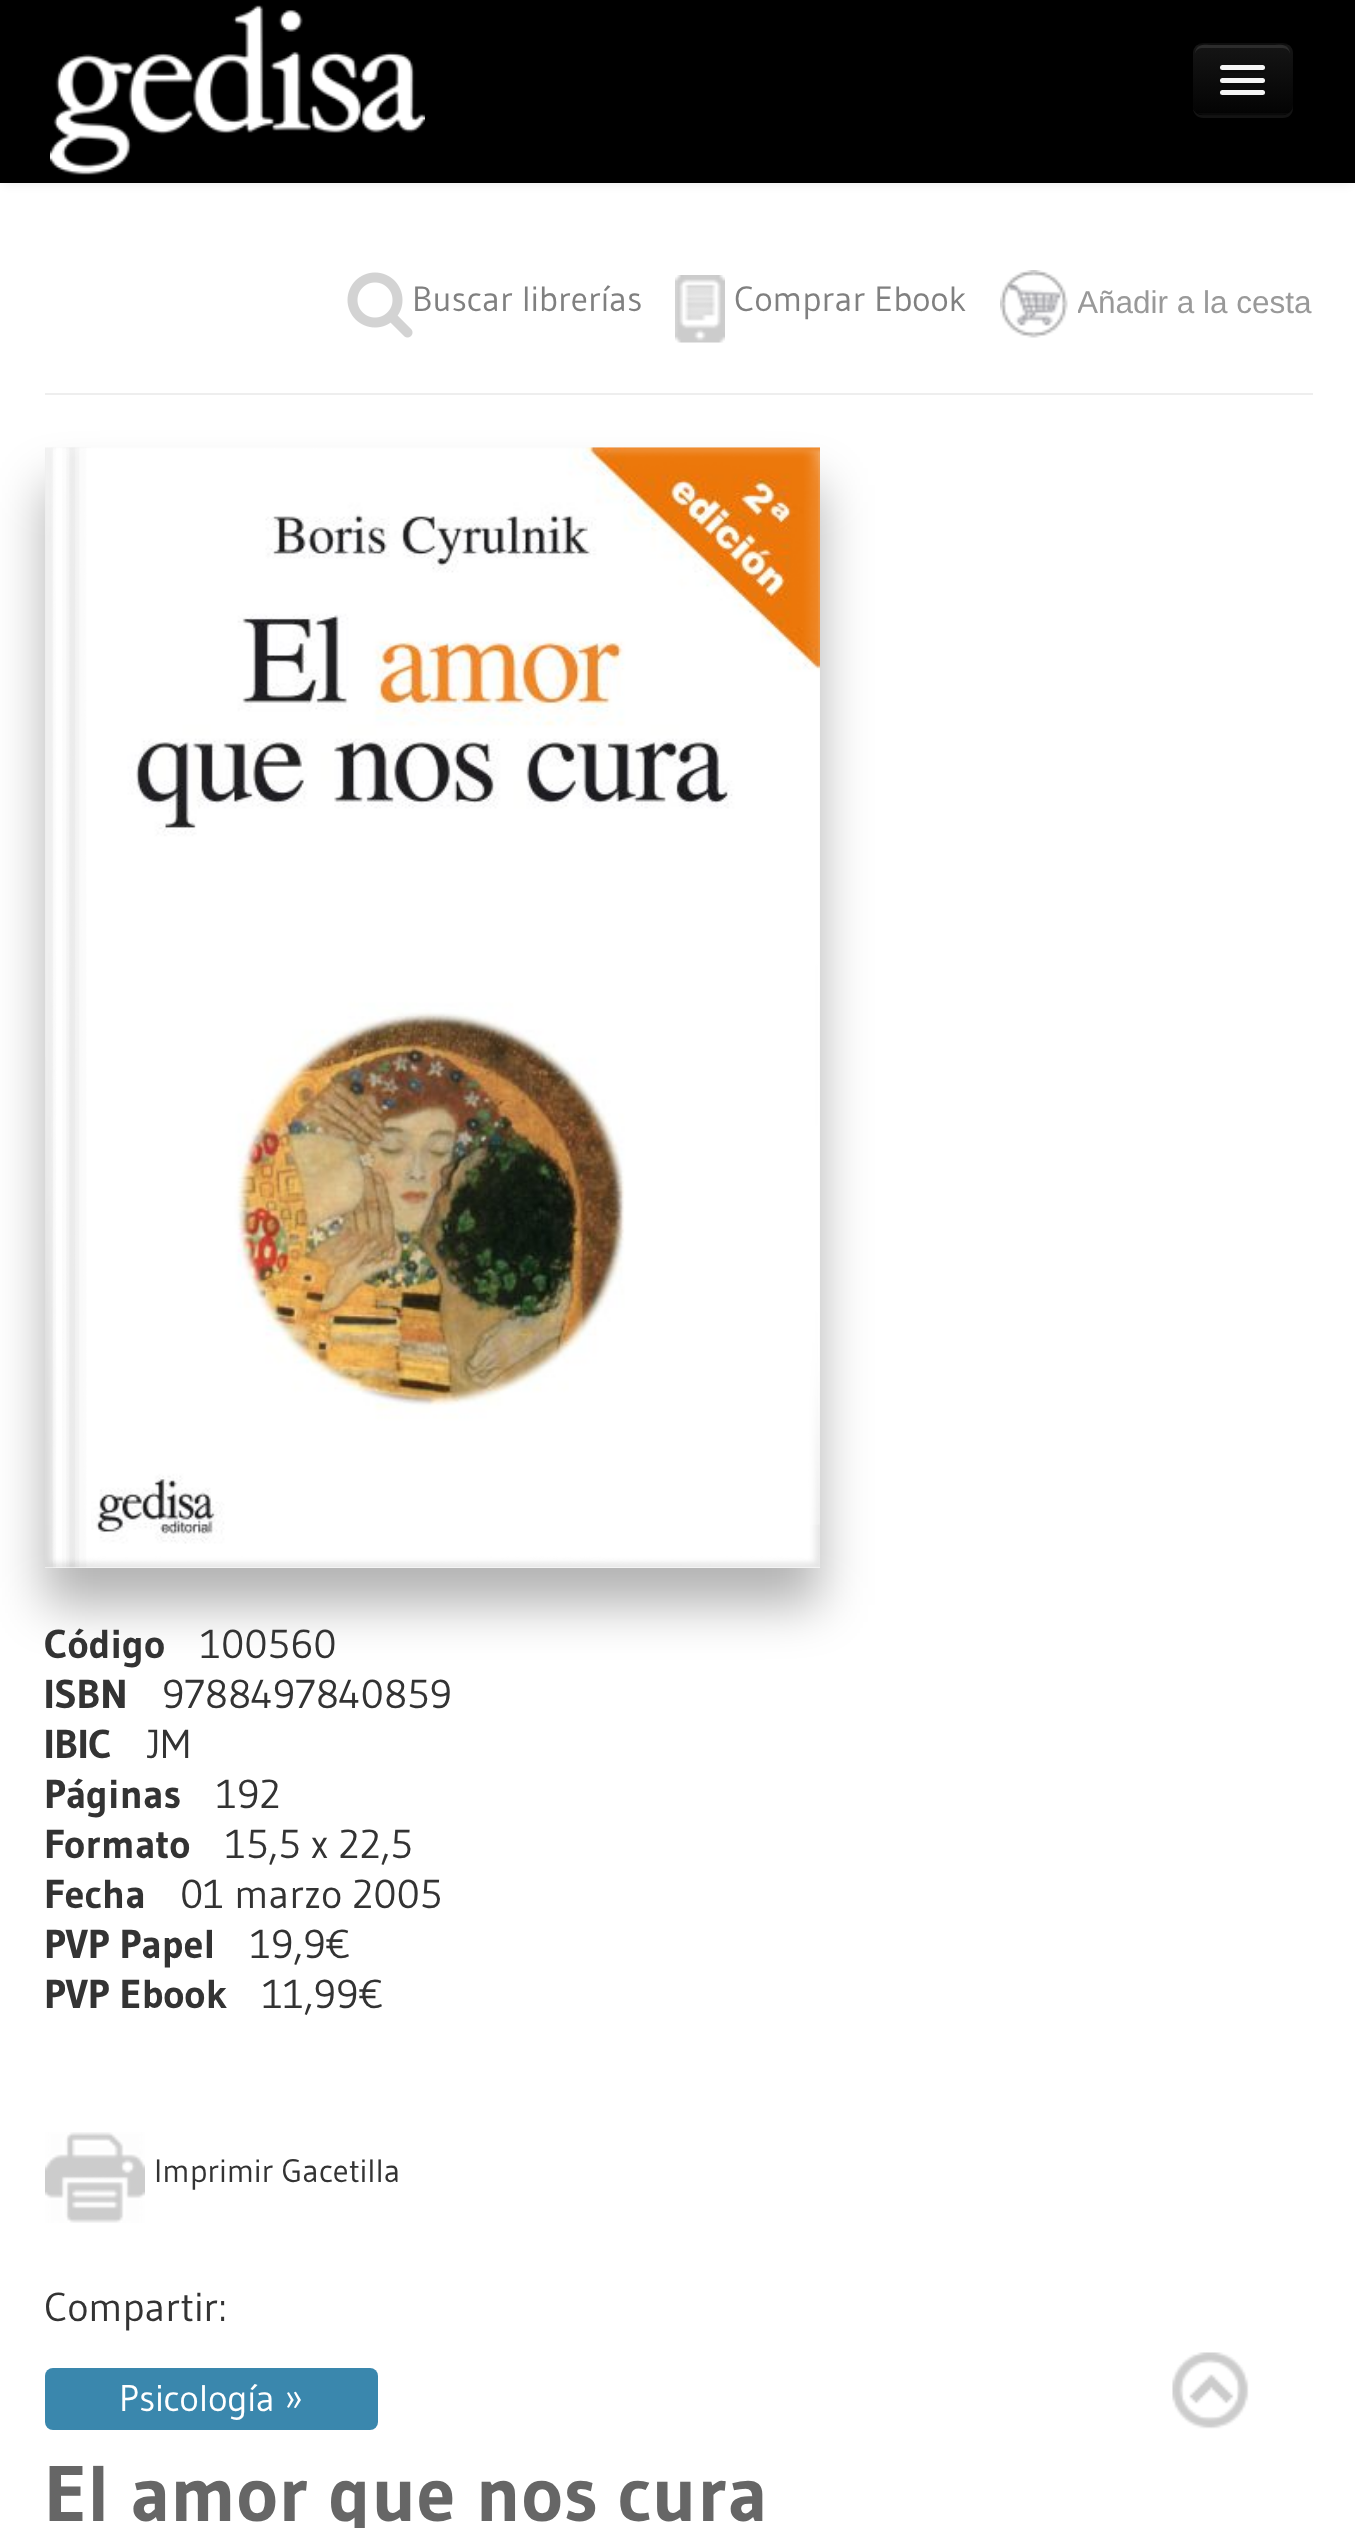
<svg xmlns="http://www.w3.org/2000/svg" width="1355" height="2528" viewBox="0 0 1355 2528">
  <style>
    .t1 { font: 35px Gudea; fill: #808080; }
    .t2 { font: 31.5px Liberation Sans; fill: #999; }
    .t3 { font: bold 40.25px Gudea; fill: #333; }
    .t4 { font: 40.25px Gudea; fill: #333; }
    .t5 { font: 32.25px Gudea; fill: #333; }
    .t6 { font: 37px Gudea; fill: #fff; }
    .t7 { font: bold 78.75px Gudea; fill: #666; }
  </style>
  <defs>
    <clipPath id="clip1"><path d="M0 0H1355V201H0ZM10 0H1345C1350.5 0 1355 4.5 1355 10V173C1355 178.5 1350.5 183 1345 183H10C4.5 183 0 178.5 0 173V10C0 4.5 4.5 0 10 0Z" clip-rule="evenodd"/></clipPath>
    <clipPath id="clip2"><rect x="1193" y="43" width="100" height="72" rx="10"/></clipPath>
    <linearGradient id="g1" gradientUnits="userSpaceOnUse" x1="1243" y1="45" x2="1243" y2="113"><stop offset="0" stop-color="#151515"/><stop offset="1" stop-color="#040404"/></linearGradient>
    <clipPath id="clip3"><rect x="1078" y="278" width="235" height="50"/></clipPath>
    <clipPath id="clip4"><path d="M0 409H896V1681H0ZM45 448H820V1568H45Z" clip-rule="evenodd"/></clipPath>
  </defs>
  <rect width="100%" height="100%" fill="#fff"/>
  <rect x="0" y="0" width="1355" height="183" fill="#000"/>
  <g clip-path="url(#clip1)">
    <rect x="0" y="3" width="1355" height="182" rx="10" fill="#00000012" filter="blur(5px)"/>
  </g>
  <image x="50" y="5" width="375" height="170" href="images/1.png"/>
  <path d="M1193 108C1193 114 1198 118 1203 118H1283C1289 118 1293 114 1293 108V55L1292 52V105C1292 111 1288 115 1282 115H1202C1198 115 1194 112 1193 108Z" fill="#131313"/>
  <rect x="1193" y="43" width="100" height="72" rx="10" fill="#0e0e0e"/>
  <g clip-path="url(#clip2)">
    <rect x="1193" y="45" width="100" height="68" fill="url(#g1)"/>
  </g>
  <path d="M1202 48H1282C1287 48 1290 51 1290 55C1290 42 1279 45 1269 45H1216C1206 45 1195 42 1195 55C1195 51 1198 48 1202 48Z" fill="#2c2c2c"/>
  <path d="M1288.5 111C1287 113 1285 114 1282.5 114H1202.5C1200 114 1198 113 1196.5 111" fill="none" stroke="#00000040" stroke-width="2.5"/>
  <path d="M1220 69C1217 73 1225 73 1229 73H1256C1260 73 1268 73 1265 69L1263 70H1222Z" fill="#0b0b0b"/>
  <rect x="1220" y="65" width="45" height="5" rx="2.5" fill="#f5f5f5"/>
  <path d="M1220 81C1217 86 1229 85 1229 85H1256C1256 85 1268 86 1265 81C1264 82 1263 82 1262 82H1222C1222 82 1221 82 1220 81Z" fill="#090909"/>
  <rect x="1220" y="78" width="45" height="5" rx="2.5" fill="#f5f5f5"/>
  <rect x="1220" y="90" width="45" height="5" rx="2.5" fill="#f5f5f5"/>
  <image x="347" y="272" width="66" height="66" href="images/2.png"/>
  <text x="412" y="311" class="t1">Buscar librerías</text>
  <image x="675" y="275" width="50" height="68" href="images/3.png"/>
  <text x="734" y="311" class="t1">Comprar Ebook</text>
  <image x="1000" y="270" width="68" height="68" href="images/4.png"/>
  <g clip-path="url(#clip3)">
    <text x="1077" y="313" class="t2">Añadir a la cesta</text>
  </g>
  <rect x="45" y="393" width="1268" height="2" fill="#eee"/>
  <g clip-path="url(#clip4)">
    <rect x="45" y="485" width="775" height="1120" fill="#0000004d" filter="blur(25px)"/>
  </g>
  <image x="91" y="447" width="729" height="1097" href="images/5.png"/>
  <image x="45" y="447" width="775" height="1121" href="images/6.png"/>
  <text x="44" y="1658" class="t3">Código</text>
  <text x="200" y="1658" class="t4">100560</text>
  <text x="44" y="1708" class="t3">ISBN</text>
  <text x="162" y="1708" class="t4">9788497840859</text>
  <text x="44" y="1758" class="t3">IBIC</text>
  <text x="147" y="1758" class="t4">JM</text>
  <text x="44" y="1808" class="t3">Páginas</text>
  <text x="216" y="1808" class="t4">192</text>
  <text x="44" y="1858" class="t3">Formato</text>
  <text x="225" y="1858" class="t4">15,5 x 22,5</text>
  <text x="44" y="1908" class="t3">Fecha</text>
  <text x="180" y="1908" class="t4">01 marzo 2005</text>
  <text x="44" y="1958" class="t3">PVP Papel</text>
  <text x="250" y="1958" class="t4">19,9€</text>
  <text x="44" y="2008" class="t3">PVP Ebook</text>
  <text x="262" y="2008" class="t4">11,99€</text>
  <image x="45" y="2132" width="100" height="91" href="images/7.png"/>
  <text x="154" y="2182" class="t5">Imprimir Gacetilla</text>
  <text x="44" y="2321" class="t4">Compartir:</text>
  <rect x="45" y="2368" width="333" height="62" rx="8" fill="#3a87ad"/>
  <text x="119" y="2411" class="t6">Psicología »</text>
  <text x="44" y="2521" class="t7">El amor que nos cura</text>
  <image x="1172" y="2352" width="77" height="77" href="images/8.png"/>
</svg>
